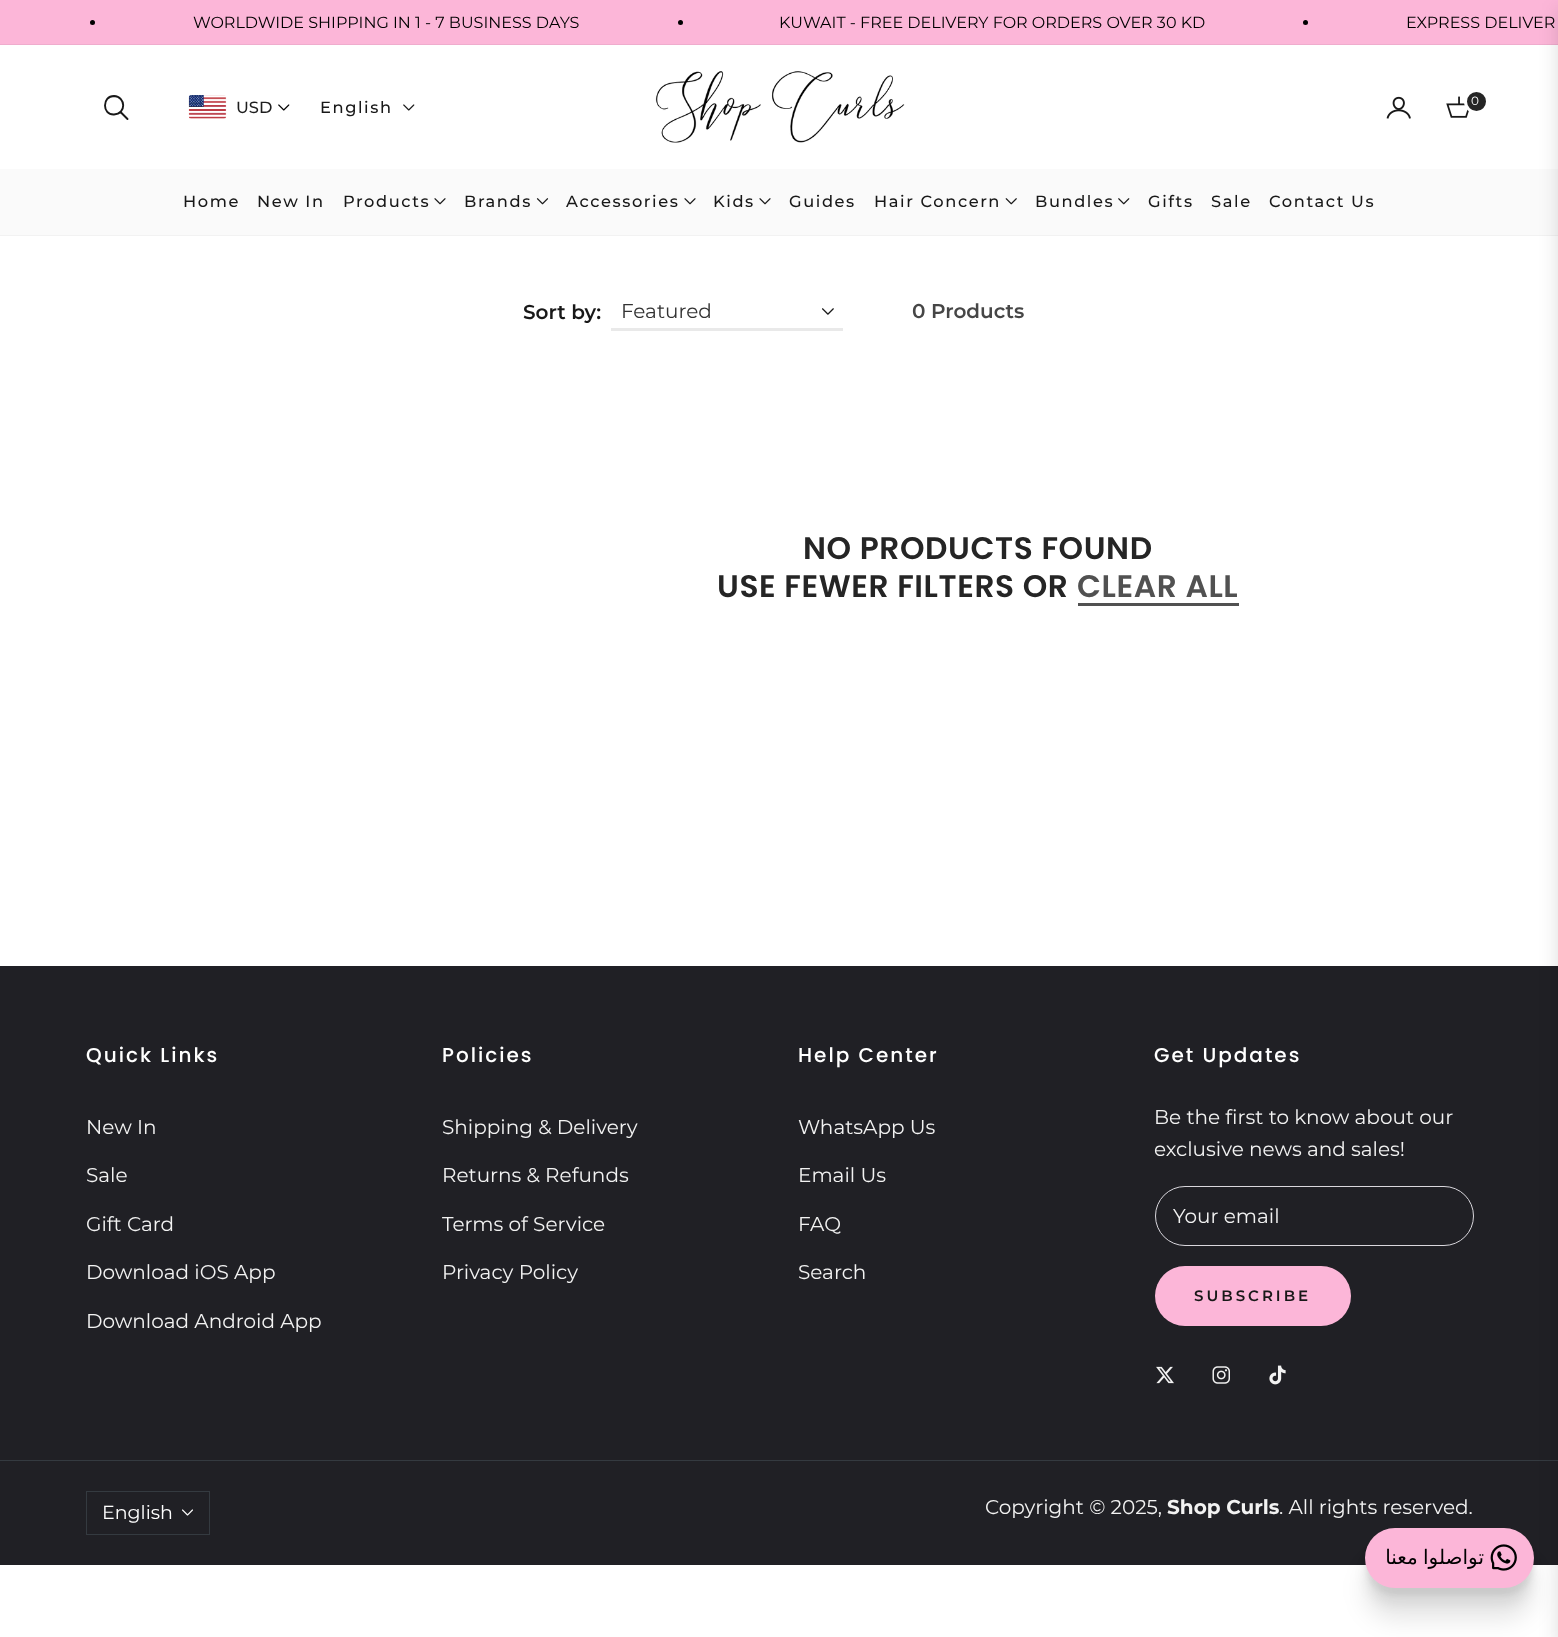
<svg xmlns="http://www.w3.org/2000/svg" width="1558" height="1637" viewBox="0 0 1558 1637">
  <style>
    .t1 { font: 16px Montserrat; fill: #000; }
    .t2 { font: 500 16.25px Montserrat; fill: #1e1e1e; }
    .t3 { font: 500 16.25px Montserrat; letter-spacing: 1.6px; fill: #181818; }
    .t4 { font: 12px Montserrat; letter-spacing: 1.6px; fill: #fff; }
    .t5 { font: 600 20px Montserrat; fill: #181818; }
    .t6 { font: 20px Montserrat; fill: #333; }
    .t7 { font: 600 20px Montserrat; fill: #464646; }
    .t8 { font: 600 31.25px Poppins; letter-spacing: 0.6px; fill: #252525; }
    .t9 { font: 600 31.25px Poppins; letter-spacing: 0.6px; fill: #515151; }
    .t10 { font: 500 20px Poppins; letter-spacing: 2px; fill: #fff; }
    .t11 { font: 20px Montserrat; fill: #f2f2f2; }
    .t12 { font: 600 15px Montserrat; letter-spacing: 3px; fill: #181818; }
    .t13 { font: 19px Montserrat; fill: #fff; }
    .t14 { font: bold 20px Montserrat; fill: #f2f2f2; }
    .t15 { font: 20px DejaVu Sans; direction: rtl; fill: #000; }
  </style>
  <rect width="100%" height="100%" fill="#fff"/>
  <rect x="0" y="0" width="1558" height="45" fill="#fcb6d8"/>
  <circle cx="92.5" cy="22.5" r="2.5" fill="#000"/>
  <text x="193" y="28" class="t1">WORLDWIDE SHIPPING IN 1 - 7 BUSINESS DAYS</text>
  <circle cx="680.5" cy="22.5" r="2.5" fill="#000"/>
  <text x="779" y="28" class="t1">KUWAIT - FREE DELIVERY FOR ORDERS OVER 30 KD</text>
  <circle cx="1305.5" cy="22.5" r="2.5" fill="#000"/>
  <text x="1406" y="28" class="t1">EXPRESS DELIVER</text>
  <rect x="-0.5" y="44.5" width="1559" height="191" fill="none" stroke="#0000000d"/>
  <path d="M114 96C102 96 102 115 114 114.5C126.5 114 126 96.5 114 96Z" fill="none" stroke="#181818" stroke-width="1.9"/>
  <path d="M121 112.5L127.5 119" fill="none" stroke="#181818" stroke-width="1.9" stroke-linecap="round"/>
  <image x="188" y="95" width="39" height="24" href="images/1.png"/>
  <text x="236" y="113" class="t2">USD</text>
  <image x="278" y="104" width="12" height="7" href="images/2.png"/>
  <text x="320" y="113" class="t3">English</text>
  <image x="403" y="104" width="12" height="7" href="images/3.png"/>
  <image x="655" y="71" width="250" height="72" href="images/4.png"/>
  <image x="1386" y="96" width="25" height="23" href="images/5.png"/>
  <image x="1446" y="96" width="23" height="22" href="images/6.png"/>
  <circle cx="1476.5" cy="101.5" r="11" fill="#252525" stroke="#fff" stroke-width="3"/>
  <text x="1471" y="105" class="t4">0</text>
  <rect x="0" y="169" width="1558" height="66" fill="#fafafa"/>
  <rect x="0" y="966" width="1558" height="599" fill="#202025"/>
  <rect x="0" y="1460" width="1558" height="1" fill="#343a40"/>
  <rect x="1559" y="10" width="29" height="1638" fill="#00000026" filter="blur(10px)"/>
  <text x="183" y="207" class="t3">Home</text>
  <text x="257" y="207" class="t3">New In</text>
  <text x="343" y="207" class="t3">Products</text>
  <image x="434" y="198" width="12" height="7" href="images/7.png"/>
  <text x="464" y="207" class="t3">Brands</text>
  <image x="536" y="198" width="13" height="7" href="images/8.png"/>
  <text x="566" y="207" class="t3">Accessories</text>
  <image x="684" y="198" width="12" height="7" href="images/7.png"/>
  <text x="713" y="207" class="t3">Kids</text>
  <image x="759" y="198" width="12" height="7" href="images/7.png"/>
  <text x="789" y="207" class="t3">Guides</text>
  <text x="874" y="207" class="t3">Hair Concern</text>
  <image x="1005" y="198" width="12" height="7" href="images/9.png"/>
  <text x="1035" y="207" class="t3">Bundles</text>
  <image x="1118" y="198" width="12" height="7" href="images/10.png"/>
  <text x="1148" y="207" class="t3">Gifts</text>
  <text x="1211" y="207" class="t3">Sale</text>
  <text x="1269" y="207" class="t3">Contact Us</text>
  <text x="523" y="319" class="t5">Sort by:</text>
  <rect x="611" y="328" width="232" height="3" fill="#e9e9e9"/>
  <text x="621" y="318" class="t6">Featured</text>
  <image x="822" y="308" width="12" height="7" href="images/11.png"/>
  <text x="912" y="318" class="t7">0 Products</text>
  <text x="803" y="559" class="t8">NO PRODUCTS FOUND</text>
  <text x="717" y="597" class="t8">USE FEWER FILTERS OR</text>
  <text x="1077" y="597" class="t9">CLEAR ALL</text>
  <rect x="1078" y="603" width="161" height="3" fill="#515151"/>
  <text x="86" y="1062" class="t10">Quick Links</text>
  <text x="86" y="1134" class="t11">New In</text>
  <text x="86" y="1182" class="t11">Sale</text>
  <text x="86" y="1231" class="t11">Gift Card</text>
  <text x="86" y="1279" class="t11">Download iOS App</text>
  <text x="86" y="1328" class="t11">Download Android App</text>
  <text x="442" y="1062" class="t10">Policies</text>
  <text x="442" y="1134" class="t11">Shipping &amp; Delivery</text>
  <text x="442" y="1182" class="t11">Returns &amp; Refunds</text>
  <text x="442" y="1231" class="t11">Terms of Service</text>
  <text x="442" y="1279" class="t11">Privacy Policy</text>
  <text x="798" y="1062" class="t10">Help Center</text>
  <text x="798" y="1134" class="t11">WhatsApp Us</text>
  <text x="798" y="1182" class="t11">Email Us</text>
  <text x="798" y="1231" class="t11">FAQ</text>
  <text x="798" y="1279" class="t11">Search</text>
  <text x="1154" y="1062" class="t10">Get Updates</text>
  <text x="1154" y="1124" class="t11">Be the first to know about our</text>
  <text x="1154" y="1156" class="t11">exclusive news and sales!</text>
  <rect x="1155.5" y="1186.5" width="318" height="59" rx="29.5" fill="none" stroke="#d9d7dd"/>
  <text x="1173" y="1223" class="t11">Your email</text>
  <rect x="1155" y="1266" width="196" height="60" rx="30" fill="#fcb6d8"/>
  <text x="1194" y="1301" class="t12">SUBSCRIBE</text>
  <image x="1156" y="1366" width="18" height="18" href="images/12.png"/>
  <image x="1212" y="1366" width="18" height="18" href="images/13.png"/>
  <image x="1269" y="1365" width="17" height="20" href="images/14.png"/>
  <rect x="86.5" y="1491.5" width="123" height="43" fill="none" stroke="#343a40"/>
  <text x="102" y="1519" class="t13">English</text>
  <image x="182" y="1509" width="11" height="7" href="images/15.png"/>
  <text x="985" y="1514" class="t11">Copyright © 2025,</text>
  <text x="1167" y="1514" class="t14">Shop Curls</text>
  <text x="1279" y="1514" class="t11">. All rights reserved.</text>
  <rect x="1365" y="1559" width="169" height="60" rx="30" fill="#0000001a" filter="blur(12.5px)"/>
  <rect x="1365" y="1544" width="169" height="60" rx="30" fill="#0000000f" filter="blur(6px)"/>
  <rect x="1365" y="1535" width="169" height="60" rx="30" fill="#0000000f" filter="blur(2.5px)"/>
  <rect x="1365" y="1528" width="169" height="60" rx="30" fill="#fcb6d8"/>
  <text x="1484" y="1564" word-spacing="-1" class="t15">تواصلوا معنا</text>
  <image x="1490" y="1544" width="27" height="27" href="images/16.png"/>
</svg>
